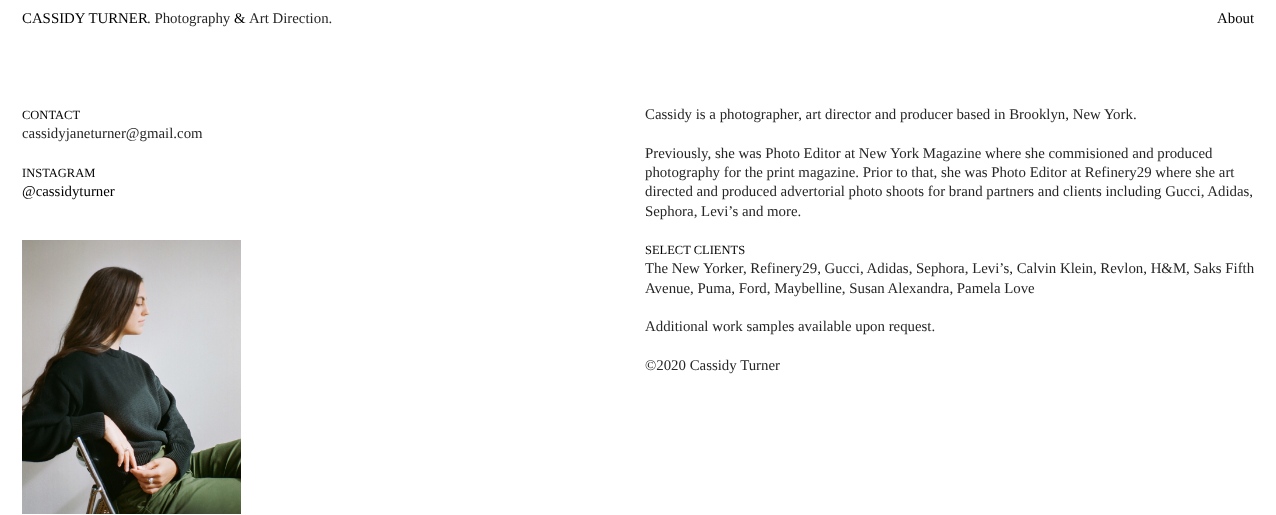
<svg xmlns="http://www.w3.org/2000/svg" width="1276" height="515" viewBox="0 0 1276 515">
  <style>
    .t1 { font: 14.85px Liberation Serif; fill: #000; }
    .t2 { font: 14.85px Liberation Serif; fill: #262626; }
    .t3 { font: 12.5px Liberation Serif; fill: #000; }
  </style>
  <rect width="100%" height="100%" fill="#fff"/>
  <text x="22" y="23" class="t1">CASSIDY TURNER</text>
  <text x="147" y="23" class="t2">. Photography</text>
  <text x="234" y="23" class="t1">&amp;</text>
  <text x="249" y="23" class="t2">Art Direction.</text>
  <text x="1217" y="23" class="t1">About</text>
  <text x="22" y="119" class="t3">CONTACT</text>
  <text x="22" y="138" class="t2">cassidyjaneturner@gmail.com</text>
  <text x="22" y="177" class="t3">INSTAGRAM</text>
  <text x="22" y="196" class="t1">@cassidyturner</text>
  <image x="22" y="240" width="219" height="274" href="images/1.png"/>
  <text x="645" y="119" class="t2">Cassidy is a photographer, art director and producer based in Brooklyn, New York.</text>
  <text x="645" y="158" class="t2">Previously, she was Photo Editor at New York Magazine where she commisioned and produced</text>
  <text x="645" y="177" class="t2">photography for the print magazine. Prior to that, she was Photo Editor at Refinery29 where she art</text>
  <text x="645" y="196" class="t2">directed and produced advertorial photo shoots for brand partners and clients including Gucci, Adidas,</text>
  <text x="645" y="216" class="t2">Sephora, Levi’s and more.</text>
  <text x="645" y="254" class="t3">SELECT CLIENTS</text>
  <text x="645" y="273" class="t2">The New Yorker, Refinery29, Gucci, Adidas, Sephora, Levi’s, Calvin Klein, Revlon, H&amp;M, Saks Fifth</text>
  <text x="645" y="293" class="t2">Avenue, Puma, Ford, Maybelline, Susan Alexandra, Pamela Love</text>
  <text x="645" y="331" class="t2">Additional work samples available upon request.</text>
  <text x="645" y="370" class="t2">©2020 Cassidy Turner</text>
</svg>
